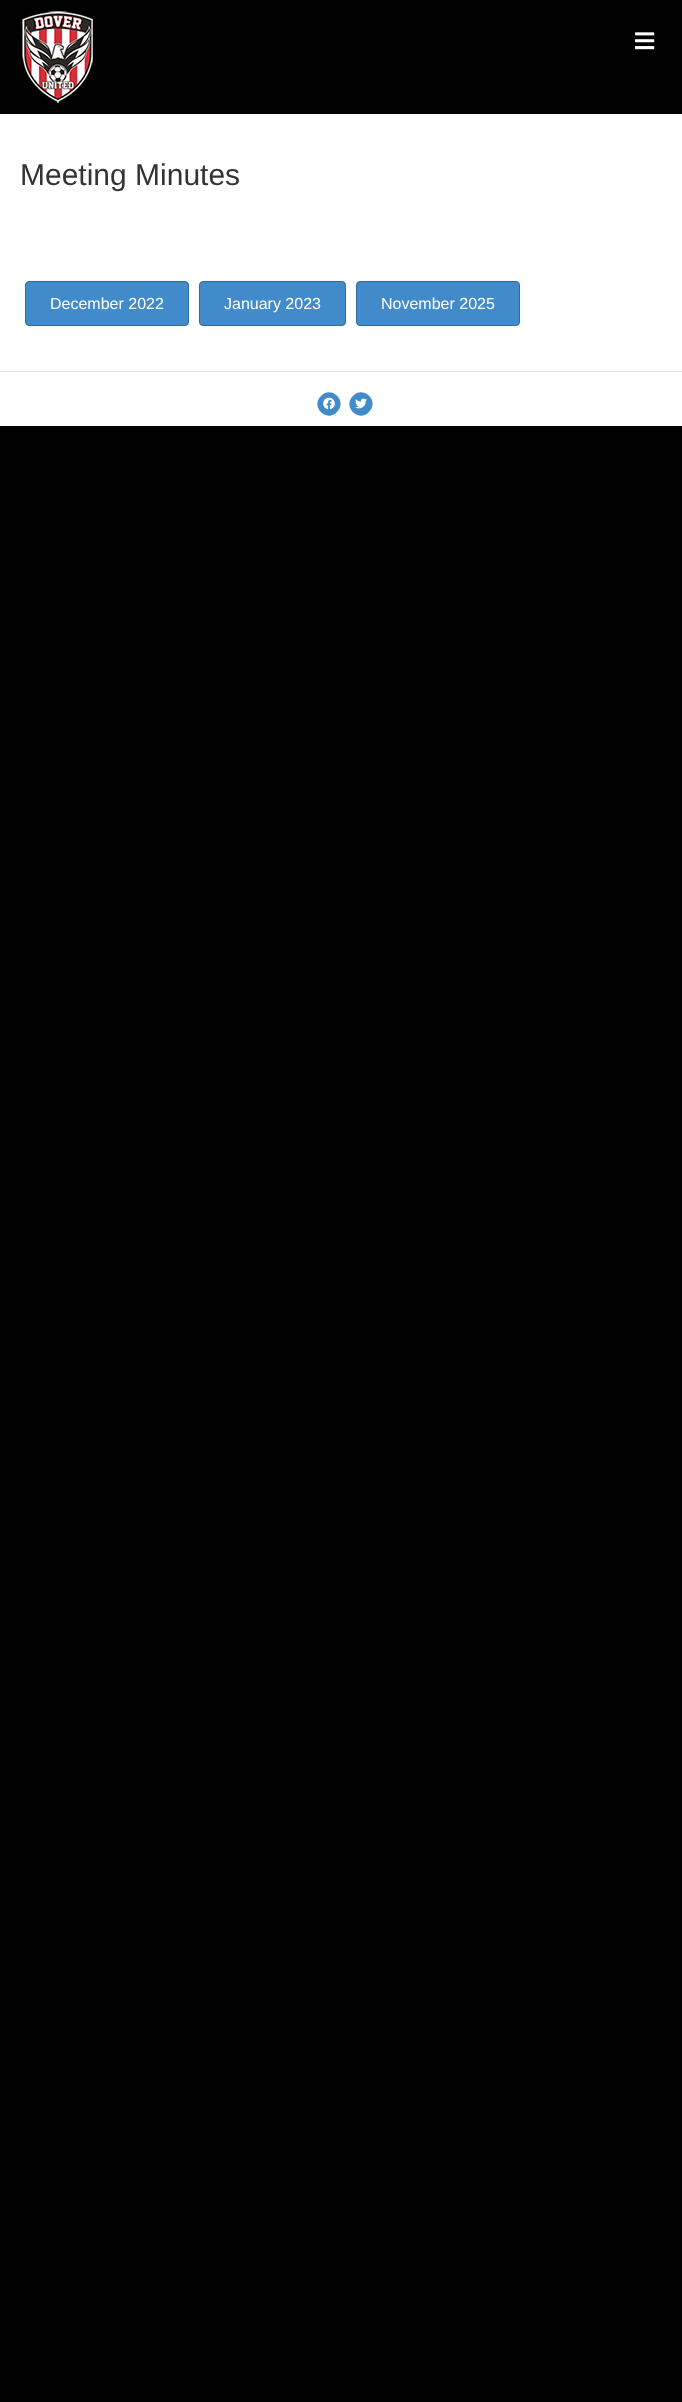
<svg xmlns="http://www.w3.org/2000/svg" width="682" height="2402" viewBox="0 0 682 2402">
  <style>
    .t1 { font: 30px Liberation Sans; fill: #333; }
    .t2 { font: 16px Liberation Sans; fill: #fff; }
  </style>
  <rect width="100%" height="100%" fill="#000"/>
  <image x="22" y="11" width="71" height="92" href="images/1.png"/>
  <image x="635" y="32" width="20" height="18" href="images/2.png"/>
  <rect x="0" y="114" width="682" height="257" fill="#fff"/>
  <text x="20" y="185" class="t1">Meeting Minutes</text>
  <rect x="25.5" y="281.5" width="163" height="44" rx="3.5" fill="#428bca" stroke="#2d6ca2"/>
  <text x="50" y="309" class="t2">December 2022</text>
  <rect x="199.5" y="281.5" width="146" height="44" rx="3.5" fill="#428bca" stroke="#2d6ca2"/>
  <text x="224" y="309" class="t2">January 2023</text>
  <rect x="356.5" y="281.5" width="163" height="44" rx="3.5" fill="#428bca" stroke="#2d6ca2"/>
  <text x="381" y="309" class="t2">November 2025</text>
  <rect x="0" y="372" width="682" height="54" fill="#fff"/>
  <rect x="0" y="371" width="682" height="1" fill="#e6e6e6"/>
  <path d="M321 396C331.5 385 348 401.5 337 412C326.5 423 310 406.5 321 396Z" fill="#428bca"/>
  <image x="323" y="397" width="12" height="13" href="images/3.png"/>
  <path d="M353 396C363.5 385 380 401.5 369 412C358.5 423 342 406.5 353 396Z" fill="#428bca"/>
  <image x="355" y="398" width="12" height="11" href="images/4.png"/>
</svg>
